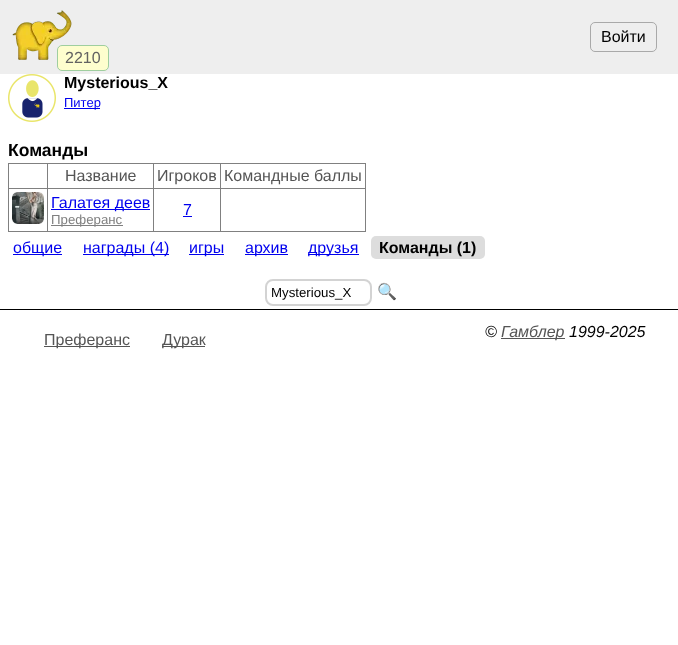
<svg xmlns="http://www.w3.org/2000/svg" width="678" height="645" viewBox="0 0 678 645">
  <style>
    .t1 { font: 16px Liberation Sans; fill: #000; }
    .t2 { font: 16px Liberation Sans; fill: #626262; }
    .t3 { font: bold 16px Liberation Sans; fill: #000; }
    .t4 { font: 13px Liberation Sans; fill: #00e; }
    .t5 { font: bold 17.5px Liberation Sans; fill: #000; }
    .t6 { font: 16px Liberation Sans; fill: #555; }
    .t7 { font: 16px Liberation Sans; fill: #00e; }
    .t8 { font: 13.25px Liberation Sans; fill: #808080; }
    .t9 { font: 13.25px Liberation Sans; fill: #000; }
    .t10 { font: 16px Noto Color Emoji; fill: #000; }
    .t11 { font: italic 16px Liberation Sans; fill: #000; }
    .t12 { font: italic 16px Liberation Sans; fill: #555; }
  </style>
  <rect width="100%" height="100%" fill="#fff"/>
  <rect x="0" y="0" width="678" height="74" fill="#eee"/>
  <rect x="590.5" y="22.5" width="66" height="29" rx="4.5" fill="none" stroke="#a9a9a9"/>
  <text x="601" y="42" class="t1">Войти</text>
  <image x="12" y="10" width="60" height="50" href="images/1.png"/>
  <rect x="57.5" y="45.5" width="51" height="25" rx="4.5" fill="#fefece" stroke="#9fce9f"/>
  <text x="65" y="63" class="t2">2210</text>
  <image x="8" y="74" width="48" height="48" href="images/2.png"/>
  <text x="64" y="88" class="t3">Mysterious_X</text>
  <rect x="64" y="108" width="36" height="1" fill="#00e"/>
  <text x="64" y="107" class="t4">Питер</text>
  <text x="8" y="156" class="t5">Команды</text>
  <rect x="8" y="163" width="358" height="1" fill="#808080"/>
  <rect x="365" y="163" width="1" height="69" fill="#808080"/>
  <rect x="8" y="231" width="358" height="1" fill="#808080"/>
  <rect x="8" y="163" width="1" height="69" fill="#808080"/>
  <rect x="220" y="188" width="146" height="1" fill="#808080"/>
  <rect x="220" y="188" width="1" height="44" fill="#808080"/>
  <rect x="153" y="188" width="68" height="1" fill="#808080"/>
  <rect x="153" y="188" width="1" height="44" fill="#808080"/>
  <rect x="47" y="188" width="107" height="1" fill="#808080"/>
  <rect x="47" y="188" width="1" height="44" fill="#808080"/>
  <rect x="8" y="188" width="40" height="1" fill="#808080"/>
  <rect x="47" y="163" width="1" height="26" fill="#808080"/>
  <text x="65" y="181" class="t6">Название</text>
  <rect x="153" y="163" width="1" height="26" fill="#808080"/>
  <text x="157" y="181" class="t6">Игроков</text>
  <rect x="220" y="163" width="1" height="26" fill="#808080"/>
  <text x="224" y="181" class="t6">Командные баллы</text>
  <image x="12" y="192" width="32" height="32" href="images/3.png"/>
  <rect x="51" y="209" width="99" height="1" fill="#00e"/>
  <text x="51" y="208" class="t7">Галатея деев</text>
  <rect x="51" y="225" width="72" height="1" fill="#808080"/>
  <text x="51" y="224" class="t8">Преферанс</text>
  <text x="183" y="215" class="t7">7</text>
  <rect x="183" y="216" width="9" height="1" fill="#00e"/>
  <rect x="13" y="254" width="49" height="1" fill="#00e"/>
  <text x="13" y="253" class="t7">общие</text>
  <rect x="83" y="254" width="86" height="1" fill="#00e"/>
  <text x="83" y="253" class="t7">награды (4)</text>
  <rect x="189" y="254" width="35" height="1" fill="#00e"/>
  <text x="189" y="253" class="t7">игры</text>
  <rect x="245" y="254" width="43" height="1" fill="#00e"/>
  <text x="245" y="253" class="t7">архив</text>
  <rect x="308" y="254" width="51" height="1" fill="#00e"/>
  <text x="308" y="253" class="t7">друзья</text>
  <rect x="371" y="236" width="114" height="23" rx="5" fill="#ddd"/>
  <text x="379" y="253" class="t3">Команды (1)</text>
  <rect x="266" y="280" width="105" height="25" rx="7" fill="none" stroke="#d3d3d3" stroke-width="2"/>
  <text x="271" y="297" class="t9">Mysterious_X</text>
  <text x="377" y="297" class="t10">🔍</text>
  <rect x="0" y="309" width="678" height="1" fill="#000"/>
  <rect x="44" y="346" width="86" height="1" fill="#555"/>
  <text x="44" y="345" class="t6">Преферанс</text>
  <rect x="162" y="346" width="43" height="1" fill="#555"/>
  <text x="162" y="345" class="t6">Дурак</text>
  <text x="485" y="337" class="t11">©</text>
  <rect x="501" y="338" width="64" height="1" fill="#555"/>
  <text x="501" y="337" class="t12">Гамблер</text>
  <text x="569" y="337" class="t11">1999-2025</text>
</svg>
